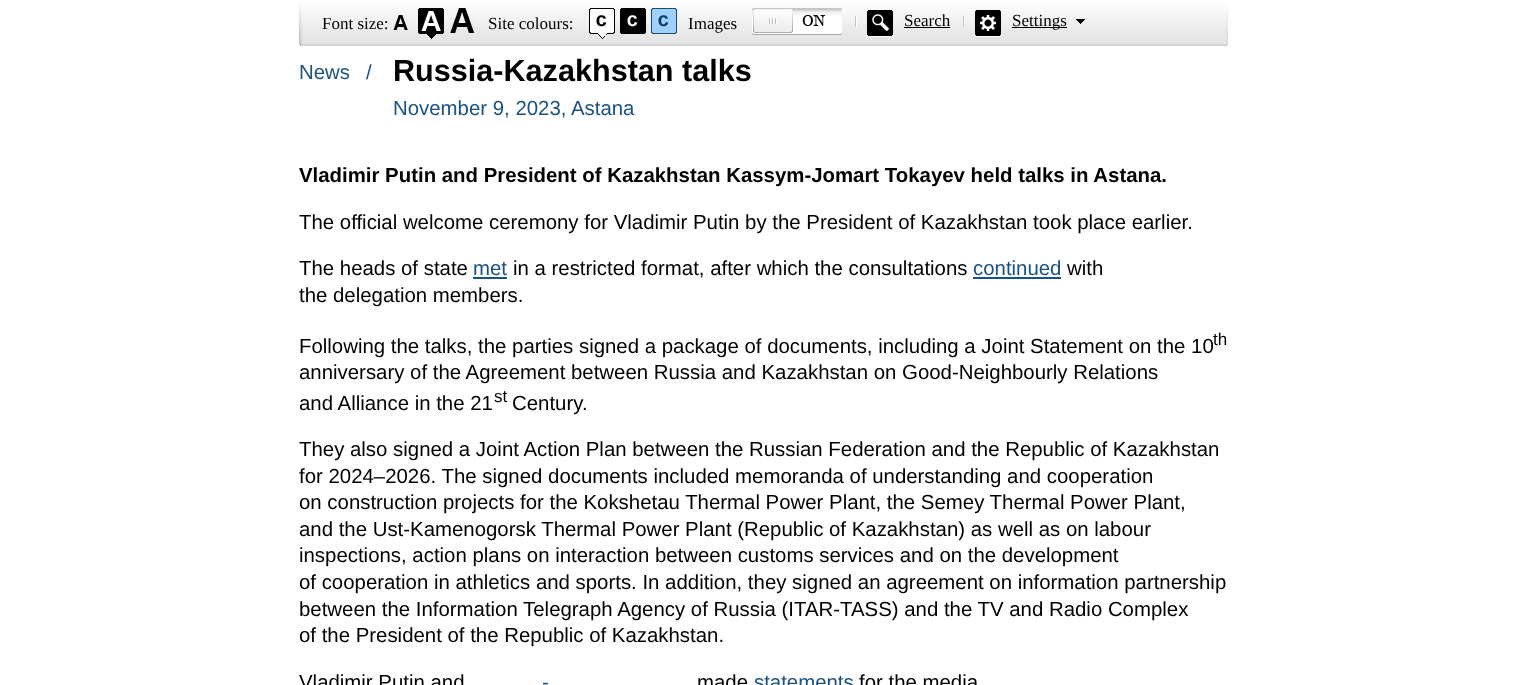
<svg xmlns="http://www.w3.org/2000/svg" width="1526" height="685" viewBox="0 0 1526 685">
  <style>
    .t1 { font: 17px Liberation Serif; fill: #000; }
    .t2 { font: 20.4px Liberation Sans; fill: #195183; }
    .t3 { font: bold 30.6px Liberation Sans; fill: #000; }
    .t4 { font: bold 20.4px Liberation Sans; fill: #000; }
    .t5 { font: 20.4px Liberation Sans; fill: #000; }
    .t6 { font: 17px Liberation Sans; fill: #000; }
  </style>
  <rect width="100%" height="100%" fill="#fff"/>
  <image x="299" y="1" width="929" height="45" href="images/1.png"/>
  <text x="322" y="29" class="t1">Font size:</text>
  <image x="393" y="15" width="15" height="15" href="images/2.png"/>
  <image x="418" y="8" width="26" height="31" href="images/3.png"/>
  <image x="450" y="8" width="25" height="25" href="images/4.png"/>
  <text x="488" y="29" class="t1">Site colours:</text>
  <image x="589" y="8" width="26" height="31" href="images/5.png"/>
  <image x="620" y="8" width="26" height="26" href="images/6.png"/>
  <image x="651" y="8" width="26" height="26" href="images/7.png"/>
  <text x="688" y="29" class="t1">Images</text>
  <image x="752" y="8" width="90" height="27" href="images/8.png"/>
  <image x="855" y="10" width="38" height="27" href="images/9.png"/>
  <text x="904" y="26" class="t1">Search</text>
  <rect x="904" y="27" width="46" height="1" fill="#000"/>
  <image x="963" y="10" width="38" height="27" href="images/10.png"/>
  <rect x="1012" y="27" width="55" height="1" fill="#000"/>
  <text x="1012" y="26" class="t1">Settings</text>
  <image x="1076" y="19" width="9" height="5" href="images/11.png"/>
  <text x="299" y="79" class="t2">News</text>
  <text x="366" y="79" class="t2">/</text>
  <text x="393" y="81" class="t3">Russia-Kazakhstan talks</text>
  <text x="393" y="115" class="t2">November 9, 2023, Astana</text>
  <text x="299" y="182" class="t4">Vladimir Putin and President of Kazakhstan Kassym-Jomart Tokayev held talks in Astana.</text>
  <text x="299" y="229" class="t5">The official welcome ceremony for Vladimir Putin by the President of Kazakhstan took place earlier.</text>
  <text x="299" y="275" class="t5">The heads of state</text>
  <text x="473" y="275" class="t2">met</text>
  <rect x="473" y="277" width="34" height="2" fill="#195183"/>
  <text x="513" y="275" class="t5">in a restricted format, after which the consultations</text>
  <text x="973" y="275" class="t2">continued</text>
  <rect x="973" y="277" width="88" height="2" fill="#195183"/>
  <text x="1067" y="275" class="t5">with</text>
  <text x="299" y="302" class="t5">the delegation members.</text>
  <text x="299" y="353" class="t5">Following the talks, the parties signed a package of documents, including a Joint Statement on the 10</text>
  <text x="1213" y="345" class="t6">th</text>
  <text x="299" y="379" class="t5">anniversary of the Agreement between Russia and Kazakhstan on Good-Neighbourly Relations</text>
  <text x="299" y="410" class="t5">and Alliance in the 21</text>
  <text x="494" y="402" class="t6">st</text>
  <text x="512" y="410" class="t5">Century.</text>
  <text x="299" y="456" class="t5">They also signed a Joint Action Plan between the Russian Federation and the Republic of Kazakhstan</text>
  <text x="299" y="483" class="t5">for 2024–2026. The signed documents included memoranda of understanding and cooperation</text>
  <text x="299" y="509" class="t5">on construction projects for the Kokshetau Thermal Power Plant, the Semey Thermal Power Plant,</text>
  <text x="299" y="536" class="t5">and the Ust-Kamenogorsk Thermal Power Plant (Republic of Kazakhstan) as well as on labour</text>
  <text x="299" y="562" class="t5">inspections, action plans on interaction between customs services and on the development</text>
  <text x="299" y="589" class="t5">of cooperation in athletics and sports. In addition, they signed an agreement on information partnership</text>
  <text x="299" y="616" class="t5">between the Information Telegraph Agency of Russia (ITAR-TASS) and the TV and Radio Complex</text>
  <text x="299" y="642" class="t5">of the President of the Republic of Kazakhstan.</text>
  <text x="299" y="689" class="t5">Vladimir Putin and</text>
  <text x="542" y="689" class="t2">-</text>
  <text x="697" y="689" class="t5">made</text>
  <text x="754" y="689" class="t2">statements</text>
  <text x="859" y="689" class="t5">for the media</text>
</svg>
